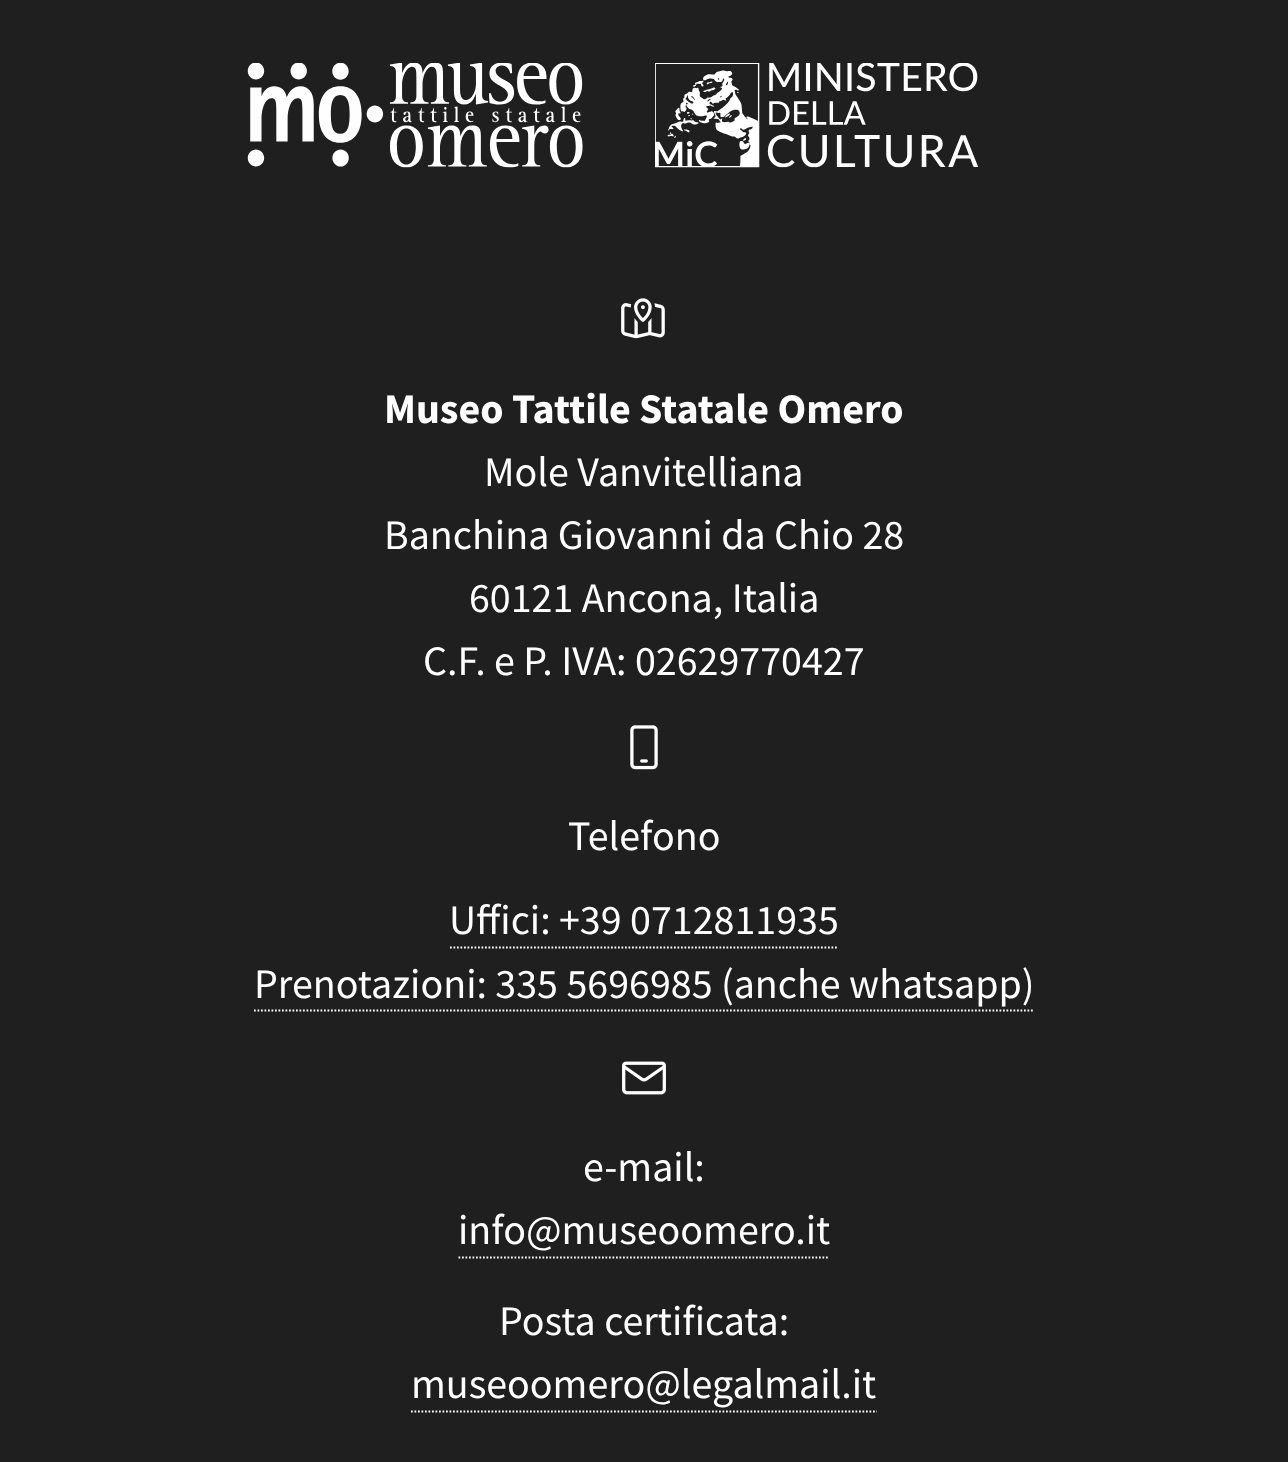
<svg xmlns="http://www.w3.org/2000/svg" width="1288" height="1462" viewBox="0 0 1288 1462">
  <style>
    .t1 { font: bold 42px Source Sans Pro; fill: #fff; }
    .t2 { font: 42px Source Sans Pro; fill: #fff; }
  </style>
  <rect width="100%" height="100%" fill="#1f1f1f"/>
  <image x="247" y="63" width="336" height="105" href="images/1.png"/>
  <image x="655" y="63" width="323" height="105" href="images/2.png"/>
  <image x="621" y="298" width="44" height="41" href="images/3.png"/>
  <text x="384" y="423" class="t1">Museo Tattile Statale Omero</text>
  <text x="484" y="486" class="t2">Mole Vanvitelliana</text>
  <text x="384" y="549" class="t2">Banchina Giovanni da Chio 28</text>
  <text x="469" y="612" class="t2">60121 Ancona, Italia</text>
  <text x="423" y="675" class="t2">C.F. e P. IVA: 02629770427</text>
  <image x="630" y="725" width="28" height="45" href="images/4.png"/>
  <text x="568" y="850" class="t2">Telefono</text>
  <text x="449" y="934" class="t2">Uffici: +39 0712811935</text>
  <path d="M450 947.5H838" fill="none" stroke="#fff" stroke-width="1.8" stroke-dasharray="1.75 1.75"/>
  <text x="254" y="998" class="t2">Prenotazioni: 335 5696985 (anche whatsapp)</text>
  <path d="M254 1010.5H1034" fill="none" stroke="#fff" stroke-width="1.8" stroke-dasharray="1.75 1.75"/>
  <image x="622" y="1061" width="44" height="34" href="images/5.png"/>
  <text x="583" y="1181" class="t2">e-mail:</text>
  <text x="458" y="1244" class="t2">info@museoomero.it</text>
  <path d="M458.5 1257.5H829.5" fill="none" stroke="#fff" stroke-width="1.8" stroke-dasharray="1.75 1.75"/>
  <text x="499" y="1335" class="t2">Posta certificata:</text>
  <text x="411" y="1398" class="t2">museoomero@legalmail.it</text>
  <path d="M411 1411.5H877" fill="none" stroke="#fff" stroke-width="1.8" stroke-dasharray="1.75 1.75"/>
</svg>
